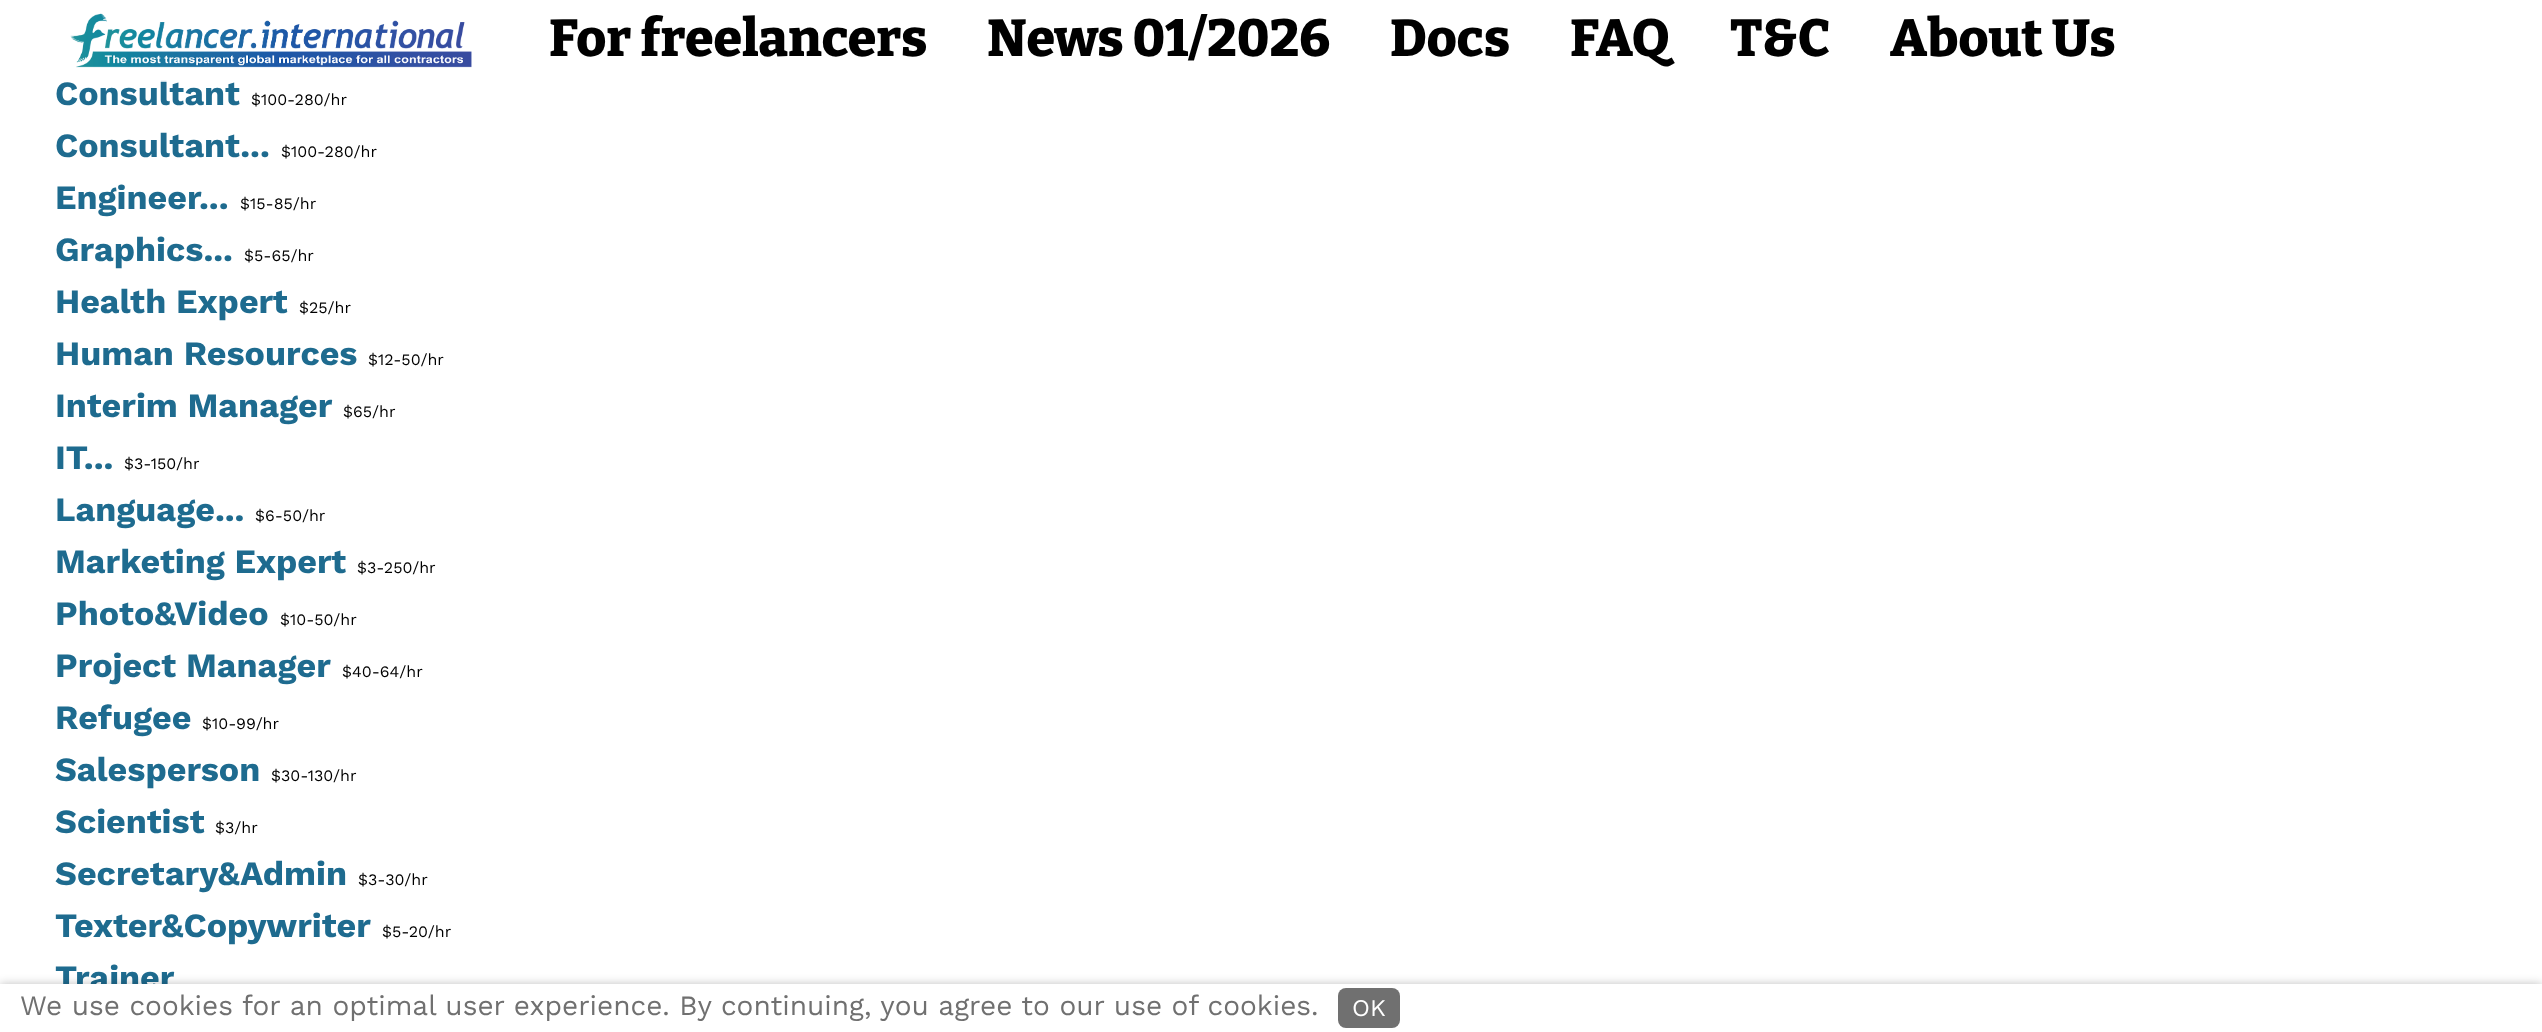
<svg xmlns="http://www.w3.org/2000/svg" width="2542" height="1032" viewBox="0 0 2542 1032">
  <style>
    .t1 { font: bold 34px Work Sans; fill: #1e6b8f; }
    .t2 { font: 100 52px Bitter; fill: #000; }
    .t3 { font: 16px Work Sans; fill: #000; }
    .t4 { font: 28px Work Sans; fill: #707070; }
    .t5 { font: 24px Work Sans; fill: #fff; }
  </style>
  <rect width="100%" height="100%" fill="#fff"/>
  <text x="55" y="105" class="t1">Consultant</text>
  <rect x="160" y="80" width="7" height="2" fill="#ffffffbf"/>
  <image x="70" y="13" width="402" height="55" href="images/1.png"/>
  <text x="549" y="56" class="t2">For freelancers</text>
  <text x="987" y="56" class="t2">News 01/2026</text>
  <text x="1390" y="56" class="t2">Docs</text>
  <text x="1570" y="56" class="t2">FAQ</text>
  <text x="1730" y="56" class="t2">T&amp;C</text>
  <text x="1890" y="56" class="t2">About Us</text>
  <text x="251" y="105" class="t3">$100-280/hr</text>
  <text x="55" y="157" class="t1">Consultant...</text>
  <text x="281" y="157" class="t3">$100-280/hr</text>
  <text x="55" y="209" class="t1">Engineer...</text>
  <text x="240" y="209" class="t3">$15-85/hr</text>
  <text x="55" y="261" class="t1">Graphics...</text>
  <text x="244" y="261" class="t3">$5-65/hr</text>
  <text x="55" y="313" class="t1">Health Expert</text>
  <text x="299" y="313" class="t3">$25/hr</text>
  <text x="55" y="365" class="t1">Human Resources</text>
  <text x="368" y="365" class="t3">$12-50/hr</text>
  <text x="55" y="417" class="t1">Interim Manager</text>
  <text x="343" y="417" class="t3">$65/hr</text>
  <text x="55" y="469" class="t1">IT...</text>
  <text x="124" y="469" class="t3">$3-150/hr</text>
  <text x="55" y="521" class="t1">Language...</text>
  <text x="255" y="521" class="t3">$6-50/hr</text>
  <text x="55" y="573" class="t1">Marketing Expert</text>
  <text x="357" y="573" class="t3">$3-250/hr</text>
  <text x="55" y="625" class="t1">Photo&amp;Video</text>
  <text x="280" y="625" class="t3">$10-50/hr</text>
  <text x="55" y="677" class="t1">Project Manager</text>
  <text x="342" y="677" class="t3">$40-64/hr</text>
  <text x="55" y="729" class="t1">Refugee</text>
  <text x="202" y="729" class="t3">$10-99/hr</text>
  <text x="55" y="781" class="t1">Salesperson</text>
  <text x="271" y="781" class="t3">$30-130/hr</text>
  <text x="55" y="833" class="t1">Scientist</text>
  <text x="215" y="833" class="t3">$3/hr</text>
  <text x="55" y="885" class="t1">Secretary&amp;Admin</text>
  <text x="358" y="885" class="t3">$3-30/hr</text>
  <text x="55" y="937" class="t1">Texter&amp;Copywriter</text>
  <text x="382" y="937" class="t3">$5-20/hr</text>
  <text x="55" y="989" class="t1">Trainer</text>
  <rect x="0" y="984" width="2542" height="48" fill="#00000040" filter="blur(5px)"/>
  <rect x="0" y="984" width="2542" height="48" fill="#fff"/>
  <text x="20" y="1015" class="t4">We use cookies for an optimal user experience. By continuing, you agree to our use of cookies.</text>
  <rect x="1338" y="988" width="62" height="40" rx="8" fill="#707070"/>
  <text x="1352" y="1016" class="t5">OK</text>
</svg>
